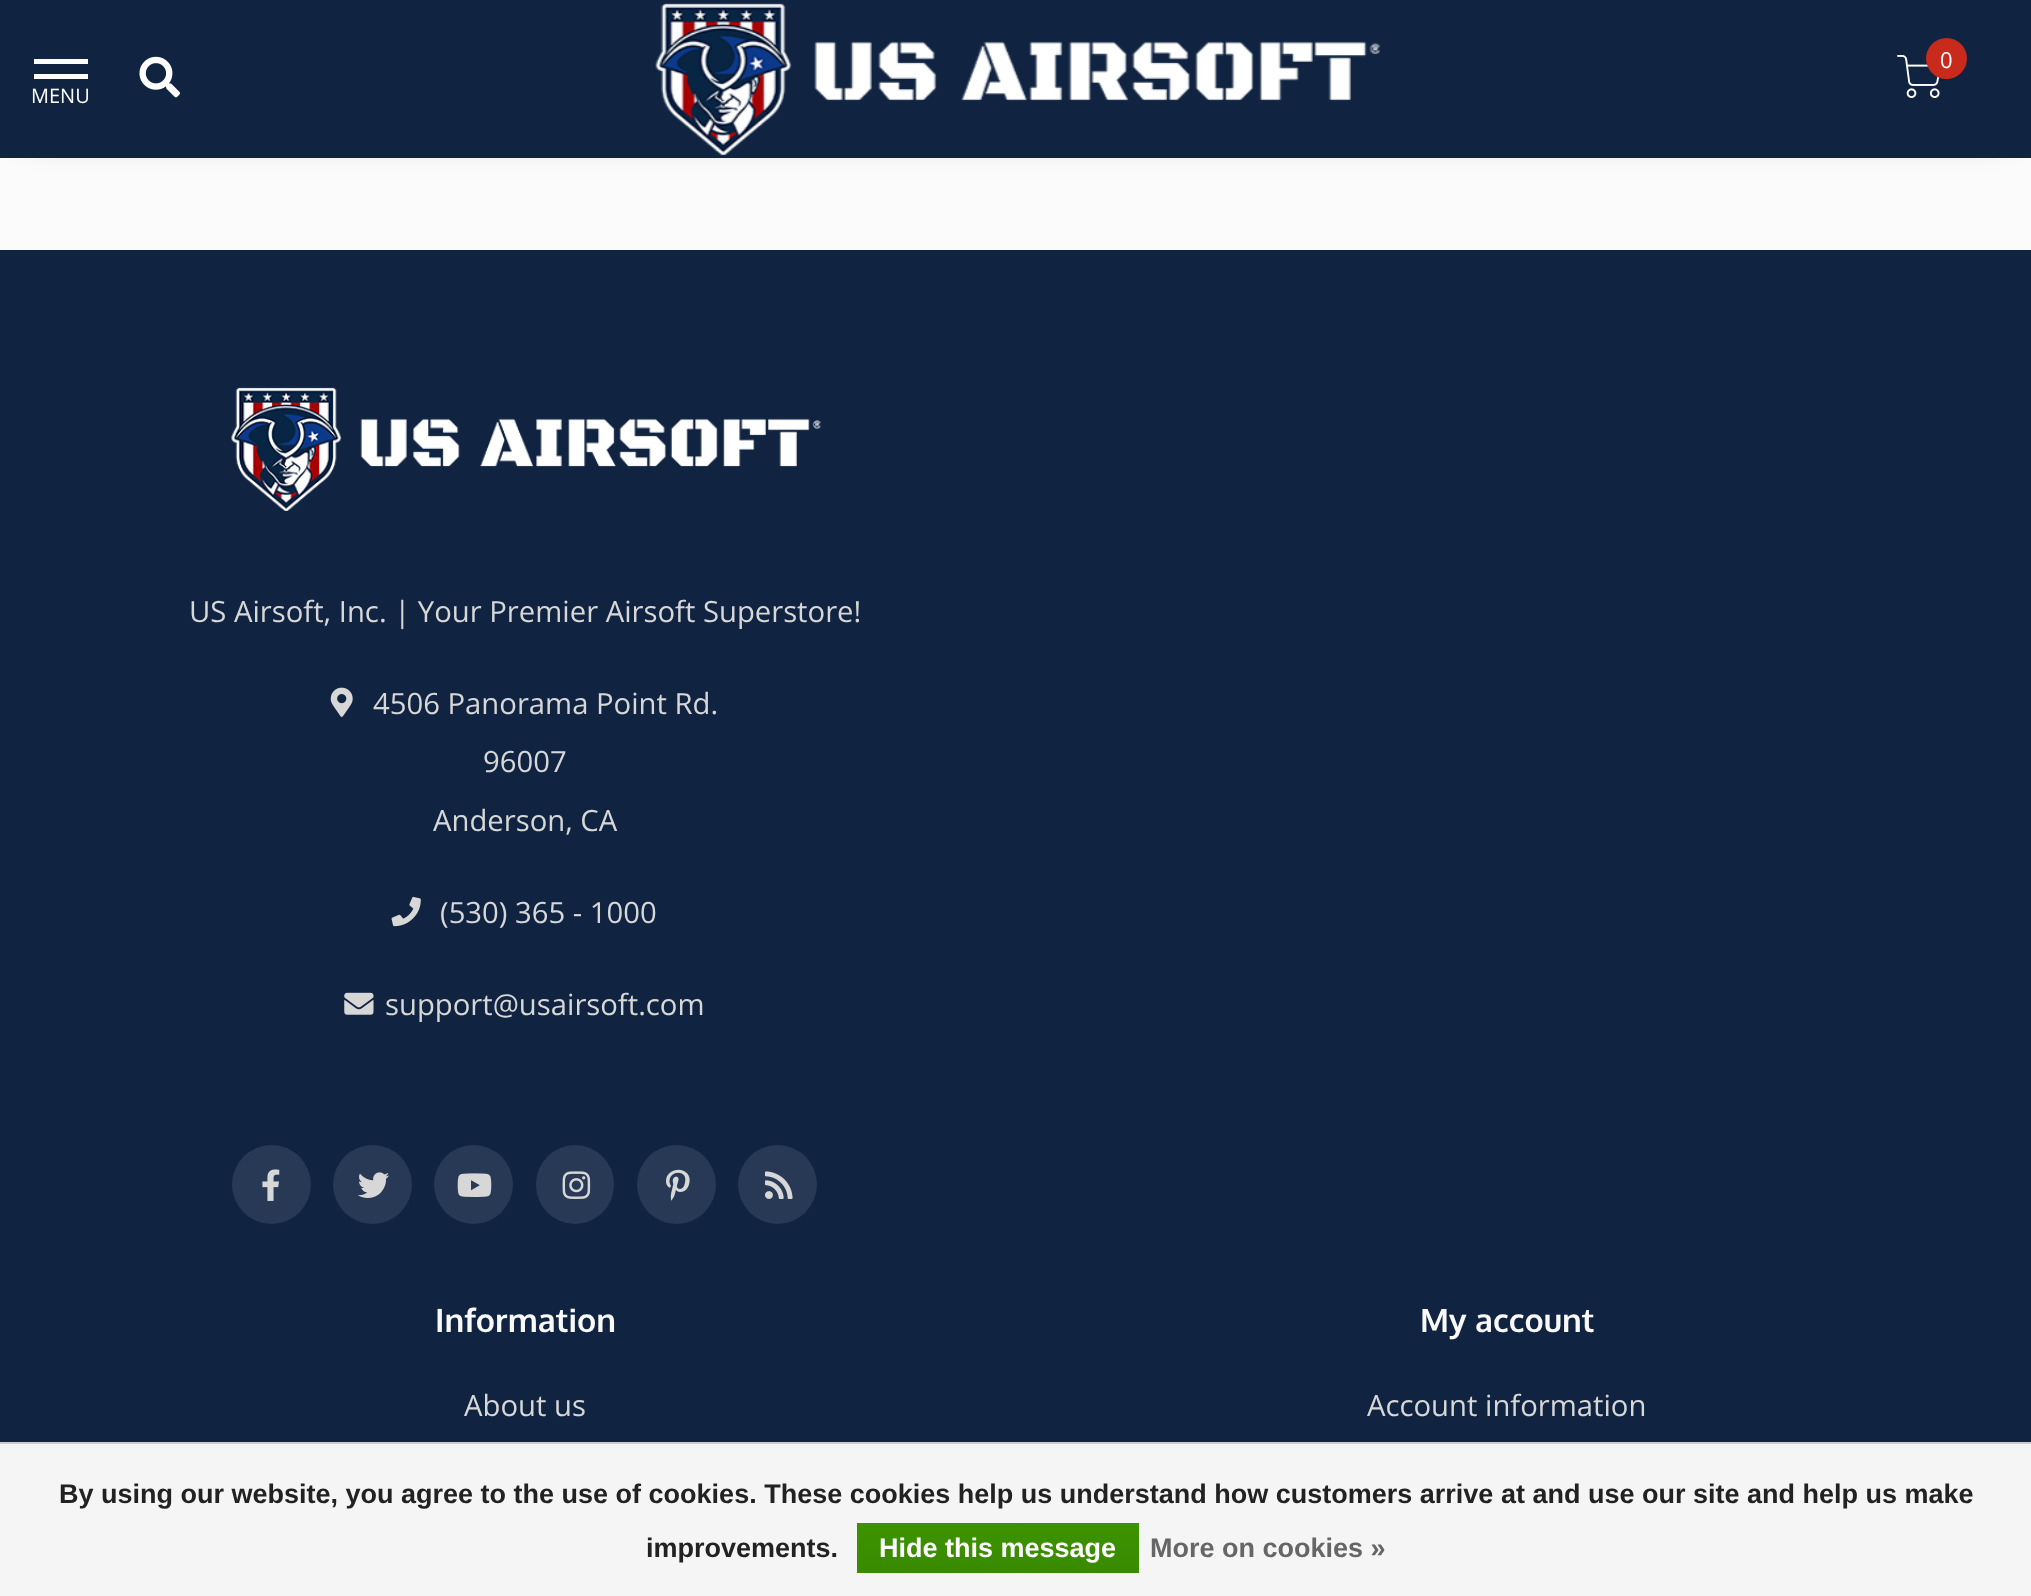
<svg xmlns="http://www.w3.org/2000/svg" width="2031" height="1596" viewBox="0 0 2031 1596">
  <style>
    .t1 { font: 22px Open Sans; fill: #fff; }
    .t2 { font: 20px Open Sans; fill: #fff; }
    .t3 { font: 29.25px Open Sans; fill: #d7d7d7; }
    .t4 { font: bold 32.25px Oxygen; fill: #f9f9f9; }
    .t5 { font: bold 27px Liberation Sans; fill: #222; }
    .t6 { font: bold 27px Liberation Sans; fill: #fff; }
    .t7 { font: bold 27px Liberation Sans; fill: #666; }
  </style>
  <defs>
    <linearGradient id="g1" gradientUnits="userSpaceOnUse" x1="998" y1="1523" x2="998" y2="1573"><stop offset="0" stop-color="#3c9300"/><stop offset="1" stop-color="#398a00"/></linearGradient>
  </defs>
  <rect width="100%" height="100%" fill="#102441"/>
  <rect x="0" y="158" width="2031" height="92" fill="#fbfbfb"/>
  <rect x="29" y="29" width="1974" height="99" fill="#000000cc" filter="blur(18px)"/>
  <rect x="0" y="0" width="2031" height="158" fill="#102441"/>
  <image x="655" y="3" width="725" height="153" href="images/1.png"/>
  <image x="1897" y="55" width="43" height="43" href="images/2.png"/>
  <circle cx="1946.5" cy="58.5" r="20.5" fill="#c82b1c"/>
  <text x="1940" y="68" class="t1">0</text>
  <rect x="34" y="59" width="54" height="5" fill="#fff"/>
  <rect x="34" y="74" width="54" height="5" fill="#fff"/>
  <text x="31" y="103" class="t2">MENU</text>
  <image x="139" y="56" width="41" height="42" href="images/3.png"/>
  <image x="231" y="387" width="590" height="124" href="images/4.png"/>
  <text x="189" y="622" class="t3">US Airsoft, Inc. | Your Premier Airsoft Superstore!</text>
  <image x="330" y="687" width="23" height="30" href="images/5.png"/>
  <text x="373" y="714" class="t3">4506 Panorama Point Rd.</text>
  <text x="483" y="772" class="t3">96007</text>
  <text x="433" y="831" class="t3">Anderson, CA</text>
  <image x="391" y="896" width="30" height="31" href="images/6.png"/>
  <text x="440" y="923" class="t3">(530) 365 - 1000</text>
  <image x="344" y="992" width="30" height="23" href="images/7.png"/>
  <text x="385" y="1015" class="t3">support@usairsoft.com</text>
  <circle cx="271.5" cy="1184.5" r="39.5" fill="#273954"/>
  <image x="262" y="1169" width="18" height="32" href="images/8.png"/>
  <circle cx="372.5" cy="1184.5" r="39.5" fill="#273954"/>
  <image x="358" y="1172" width="32" height="26" href="images/9.png"/>
  <circle cx="473.5" cy="1184.5" r="39.5" fill="#273954"/>
  <image x="457" y="1173" width="35" height="24" href="images/10.png"/>
  <rect x="536" y="1145" width="78" height="79" rx="39" fill="#273954"/>
  <image x="562" y="1171" width="29" height="28" href="images/11.png"/>
  <circle cx="676.5" cy="1184.5" r="39.5" fill="#273954"/>
  <image x="666" y="1169" width="24" height="32" href="images/12.png"/>
  <circle cx="777.5" cy="1184.5" r="39.5" fill="#273954"/>
  <image x="765" y="1171" width="28" height="28" href="images/13.png"/>
  <text x="435" y="1332" class="t4">Information</text>
  <text x="464" y="1416" class="t3">About us</text>
  <text x="1420" y="1332" class="t4">My account</text>
  <text x="1367" y="1416" class="t3">Account information</text>
  <rect x="0" y="1444" width="2031" height="152" fill="#f5f5f5"/>
  <rect x="0" y="1442" width="2031" height="2" fill="#ccc"/>
  <text x="59" y="1503" class="t5">By using our website, you agree to the use of cookies. These cookies help us understand how customers arrive at and use our site and help us make</text>
  <text x="646" y="1557" class="t5">improvements.</text>
  <rect x="857" y="1523" width="282" height="50" fill="url(#g1)"/>
  <text x="879" y="1557" class="t6">Hide this message</text>
  <text x="1150" y="1557" class="t7">More on cookies »</text>
</svg>
